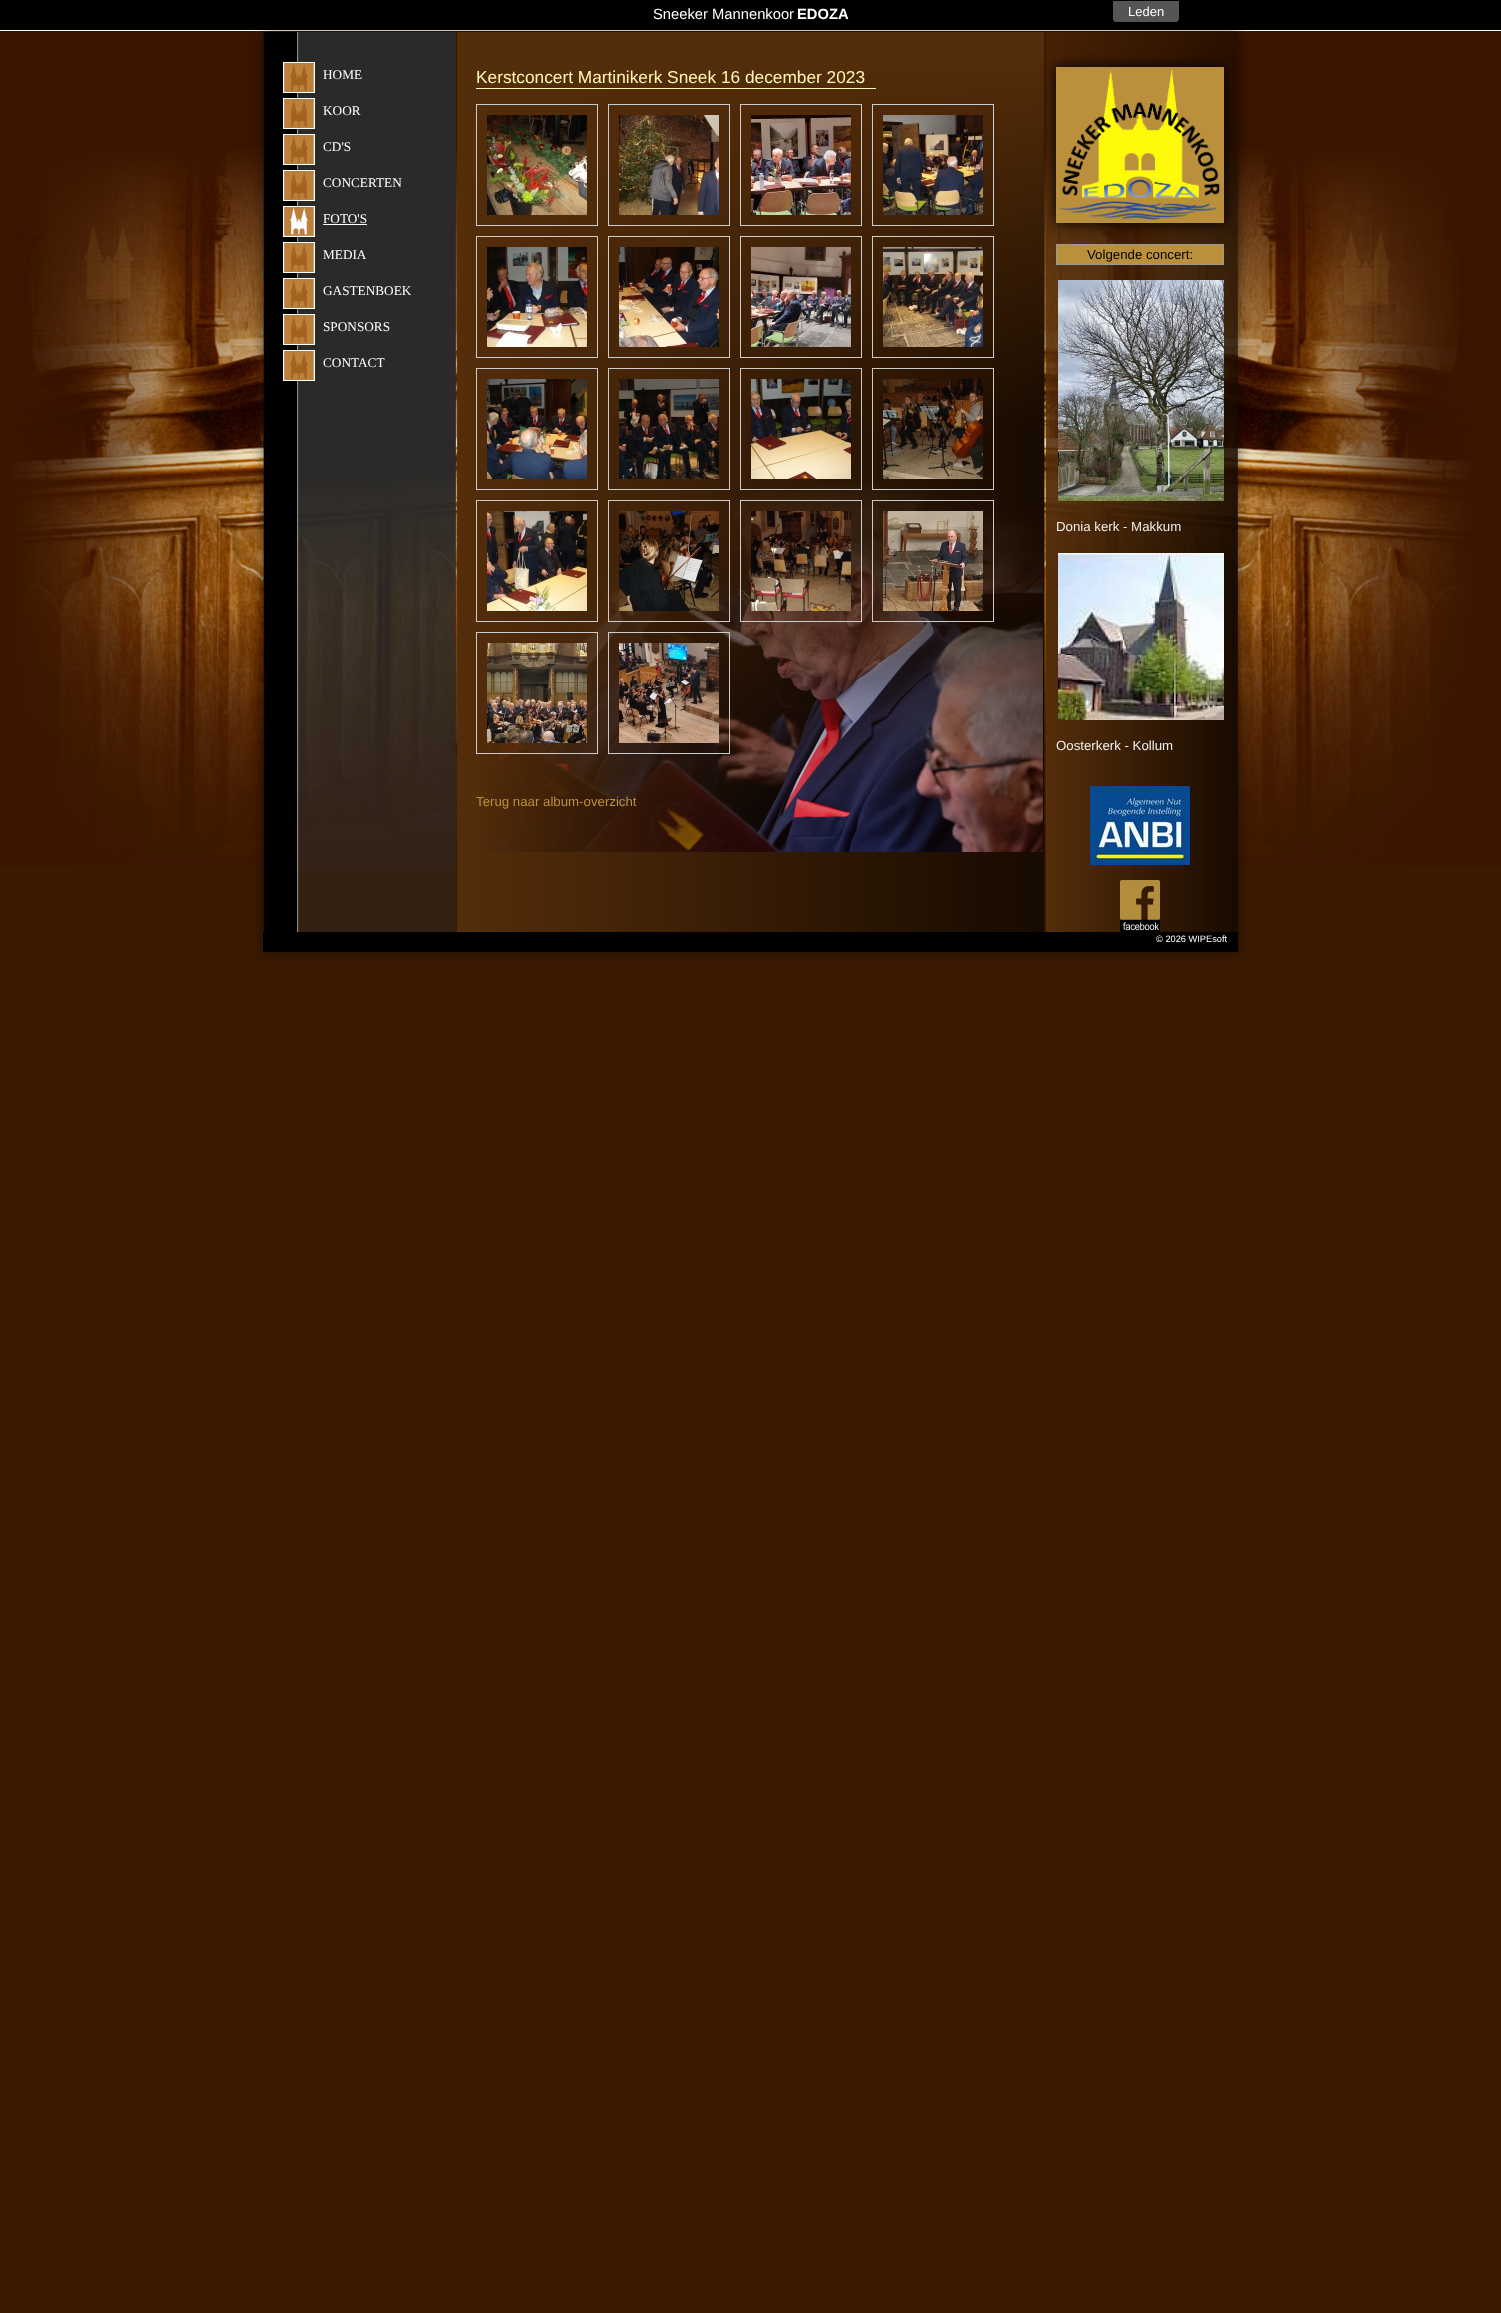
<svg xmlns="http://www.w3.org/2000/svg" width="1501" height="2313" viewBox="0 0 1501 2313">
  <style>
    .t1 { font: 13px Liberation Sans; fill: #fff; }
    .t2 { font: 13.25px Liberation Serif; fill: #fff; }
    .t3 { font: 17.3px Liberation Sans; fill: #fff7b2; }
    .t4 { font: 13.25px Liberation Sans; fill: #bb903d; }
    .t5 { font: 13.25px Liberation Sans; fill: #000; }
    .t6 { font: 13.25px Liberation Sans; fill: #eee; }
    .t7 { font: 9.25px Liberation Sans; fill: #fff; }
    .t8 { font: 14.75px Liberation Sans; fill: #fff; }
    .t9 { font: bold 14.75px Liberation Sans; fill: #fff; }
  </style>
  <rect width="100%" height="100%" fill="#3b1a00"/>
  <image x="0" y="31" width="1501" height="835" href="images/1.png"/>
  <rect x="0" y="0" width="1501" height="30" fill="#000"/>
  <rect x="0" y="30" width="1501" height="1" fill="#fff"/>
  <rect x="263" y="32" width="975" height="920" fill="#00000080" filter="blur(7px)"/>
  <image x="263" y="866" width="975" height="66" href="images/2.png"/>
  <path d="M1113 1H1179V19C1179 20.5 1177.5 22 1176 22H1116C1114.5 22 1113 20.5 1113 19Z" fill="#555"/>
  <text x="1128" y="16" class="t1">Leden</text>
  <image x="263" y="32" width="975" height="834" href="images/3.png"/>
  <image x="283" y="62" width="32" height="31" href="images/4.png"/>
  <text x="323" y="79" class="t2">HOME</text>
  <image x="283" y="98" width="32" height="31" href="images/4.png"/>
  <text x="323" y="115" class="t2">KOOR</text>
  <image x="283" y="134" width="32" height="31" href="images/4.png"/>
  <text x="323" y="151" class="t2">CD'S</text>
  <image x="283" y="170" width="32" height="31" href="images/4.png"/>
  <text x="323" y="187" class="t2">CONCERTEN</text>
  <image x="283" y="206" width="32" height="31" href="images/5.png"/>
  <text x="323" y="223" class="t2">FOTO'S</text>
  <rect x="323" y="224" width="44" height="1" fill="#fff"/>
  <image x="283" y="242" width="32" height="31" href="images/4.png"/>
  <text x="323" y="259" class="t2">MEDIA</text>
  <image x="283" y="278" width="32" height="31" href="images/4.png"/>
  <text x="323" y="295" class="t2">GASTENBOEK</text>
  <image x="283" y="314" width="32" height="31" href="images/4.png"/>
  <text x="323" y="331" class="t2">SPONSORS</text>
  <image x="283" y="350" width="32" height="31" href="images/4.png"/>
  <text x="323" y="367" class="t2">CONTACT</text>
  <image x="488" y="486" width="555" height="366" href="images/6.png"/>
  <rect x="476" y="88" width="400" height="1" fill="#fff7b2"/>
  <text x="476" y="83" class="t3">Kerstconcert Martinikerk Sneek 16 december 2023</text>
  <rect x="476.5" y="104.5" width="121" height="121" fill="none" stroke="#ccc"/>
  <image x="487" y="115" width="100" height="100" href="images/7.png"/>
  <rect x="608.5" y="104.5" width="121" height="121" fill="none" stroke="#ccc"/>
  <image x="619" y="115" width="100" height="100" href="images/8.png"/>
  <rect x="740.5" y="104.5" width="121" height="121" fill="none" stroke="#ccc"/>
  <image x="751" y="115" width="100" height="100" href="images/9.png"/>
  <rect x="872.5" y="104.5" width="121" height="121" fill="none" stroke="#ccc"/>
  <image x="883" y="115" width="100" height="100" href="images/10.png"/>
  <rect x="476.5" y="236.5" width="121" height="121" fill="none" stroke="#ccc"/>
  <image x="487" y="247" width="100" height="100" href="images/11.png"/>
  <rect x="608.5" y="236.5" width="121" height="121" fill="none" stroke="#ccc"/>
  <image x="619" y="247" width="100" height="100" href="images/12.png"/>
  <rect x="740.5" y="236.5" width="121" height="121" fill="none" stroke="#ccc"/>
  <image x="751" y="247" width="100" height="100" href="images/13.png"/>
  <rect x="872.5" y="236.5" width="121" height="121" fill="none" stroke="#ccc"/>
  <image x="883" y="247" width="100" height="100" href="images/14.png"/>
  <rect x="476.5" y="368.5" width="121" height="121" fill="none" stroke="#ccc"/>
  <image x="487" y="379" width="100" height="100" href="images/15.png"/>
  <rect x="608.5" y="368.5" width="121" height="121" fill="none" stroke="#ccc"/>
  <image x="619" y="379" width="100" height="100" href="images/16.png"/>
  <rect x="740.5" y="368.5" width="121" height="121" fill="none" stroke="#ccc"/>
  <image x="751" y="379" width="100" height="100" href="images/17.png"/>
  <rect x="872.5" y="368.5" width="121" height="121" fill="none" stroke="#ccc"/>
  <image x="883" y="379" width="100" height="100" href="images/18.png"/>
  <rect x="476.5" y="500.5" width="121" height="121" fill="none" stroke="#ccc"/>
  <image x="487" y="511" width="100" height="100" href="images/19.png"/>
  <rect x="608.5" y="500.5" width="121" height="121" fill="none" stroke="#ccc"/>
  <image x="619" y="511" width="100" height="100" href="images/20.png"/>
  <rect x="740.5" y="500.5" width="121" height="121" fill="none" stroke="#ccc"/>
  <image x="751" y="511" width="100" height="100" href="images/21.png"/>
  <rect x="872.5" y="500.5" width="121" height="121" fill="none" stroke="#ccc"/>
  <image x="883" y="511" width="100" height="100" href="images/22.png"/>
  <rect x="476.5" y="632.5" width="121" height="121" fill="none" stroke="#ccc"/>
  <image x="487" y="643" width="100" height="100" href="images/23.png"/>
  <rect x="608.5" y="632.5" width="121" height="121" fill="none" stroke="#ccc"/>
  <image x="619" y="643" width="100" height="100" href="images/24.png"/>
  <text x="476" y="806" class="t4">Terug naar album-overzicht</text>
  <rect x="1056.5" y="244.5" width="167" height="20" fill="none" stroke="#999"/>
  <rect x="1056" y="67" width="168" height="156" fill="#000" filter="blur(7px)"/>
  <rect x="1056" y="67" width="168" height="156" fill="#bb903d"/>
  <image x="1059" y="70" width="161" height="150" href="images/25.png"/>
  <rect x="1057" y="245" width="166" height="19" fill="#bb903d"/>
  <text x="1087" y="259" class="t5">Volgende concert:</text>
  <image x="1058" y="280" width="166" height="221" href="images/26.png"/>
  <text x="1056" y="531" class="t6">Donia kerk - Makkum</text>
  <image x="1058" y="553" width="166" height="167" href="images/27.png"/>
  <text x="1056" y="750" class="t6">Oosterkerk - Kollum</text>
  <image x="1090" y="786" width="100" height="79" href="images/28.png"/>
  <image x="1120" y="880" width="40" height="52" href="images/29.png"/>
  <rect x="263" y="932" width="975" height="20" fill="#000"/>
  <text x="1156" y="942" class="t7">© 2026 WIPEsoft</text>
  <text x="653" y="19" class="t8">Sneeker Mannenkoor</text>
  <text x="797" y="19" class="t9">EDOZA</text>
</svg>
